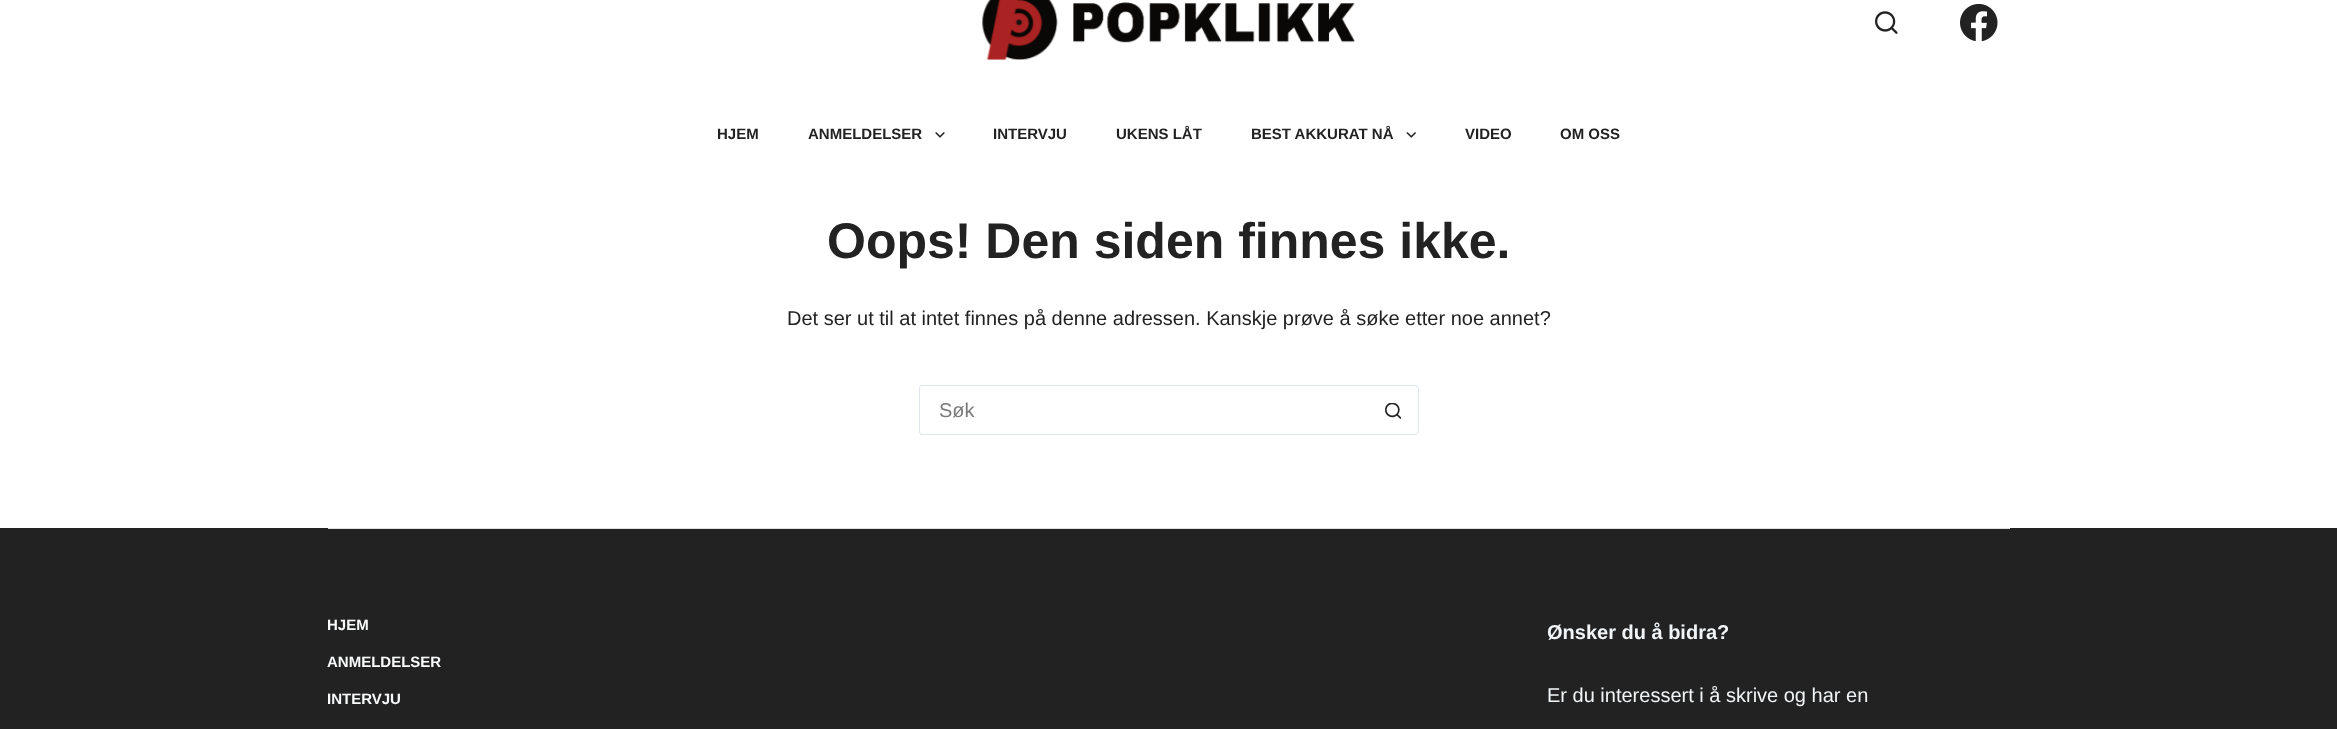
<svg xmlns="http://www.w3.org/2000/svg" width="2337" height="729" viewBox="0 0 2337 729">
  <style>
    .t1 { font: bold 15px Liberation Sans; fill: #232222; }
    .t2 { font: bold 50px Liberation Sans; fill: #232222; }
    .t3 { font: 20px Liberation Sans; fill: #232222; }
    .t4 { font: 20px Liberation Sans; fill: #7a7a7a; }
    .t5 { font: bold 15px Liberation Sans; fill: #fafbfc; }
    .t6 { font: bold 20px Liberation Sans; fill: #f2f5f7; }
    .t7 { font: 20px Liberation Sans; fill: #f2f5f7; }
  </style>
  <rect width="100%" height="100%" fill="#fff"/>
  <image x="982" y="0" width="373" height="60" href="images/1.png"/>
  <image x="1875" y="11" width="23" height="23" href="images/2.png"/>
  <image x="1960" y="4" width="38" height="37" href="images/3.png"/>
  <text x="717" y="139" class="t1">HJEM</text>
  <text x="808" y="139" class="t1">ANMELDELSER</text>
  <image x="935" y="132" width="10" height="6" href="images/4.png"/>
  <text x="993" y="139" class="t1">INTERVJU</text>
  <text x="1116" y="139" class="t1">UKENS LÅT</text>
  <text x="1251" y="139" class="t1">BEST AKKURAT NÅ</text>
  <image x="1406" y="132" width="10" height="6" href="images/5.png"/>
  <text x="1465" y="139" class="t1">VIDEO</text>
  <text x="1560" y="139" class="t1">OM OSS</text>
  <text x="827" y="258" class="t2">Oops! Den siden finnes ikke.</text>
  <text x="787" y="325" class="t3">Det ser ut til at intet finnes på denne adressen. Kanskje prøve å søke etter noe annet?</text>
  <path d="M922 385H1369V435H922C920 435 919 433 919 431V389C919 387 920 385 922 385ZM922 386H1369V434H922C921 434 920 433 920 431V389C920 387 921 386 922 386Z" fill="#e0e7ec" fill-rule="evenodd"/>
  <text x="939" y="417" class="t4">Søk</text>
  <path d="M1369 385H1415C1417 385 1419 387 1419 389V431C1419 433 1417 435 1415 435H1369ZM1369 386H1415C1416 386 1418 387 1418 389V431C1418 433 1416 434 1415 434H1369Z" fill="#e0e7ec" fill-rule="evenodd"/>
  <image x="1385" y="403" width="16" height="16" href="images/6.png"/>
  <rect x="0" y="528" width="2337" height="201" fill="#222"/>
  <rect x="328" y="528" width="1682" height="1" fill="#ddd"/>
  <text x="327" y="630" class="t5">HJEM</text>
  <text x="327" y="667" class="t5">ANMELDELSER</text>
  <text x="327" y="704" class="t5">INTERVJU</text>
  <text x="1547" y="639" class="t6">Ønsker du å bidra?</text>
  <text x="1547" y="702" class="t7">Er du interessert i å skrive og har en</text>
</svg>
